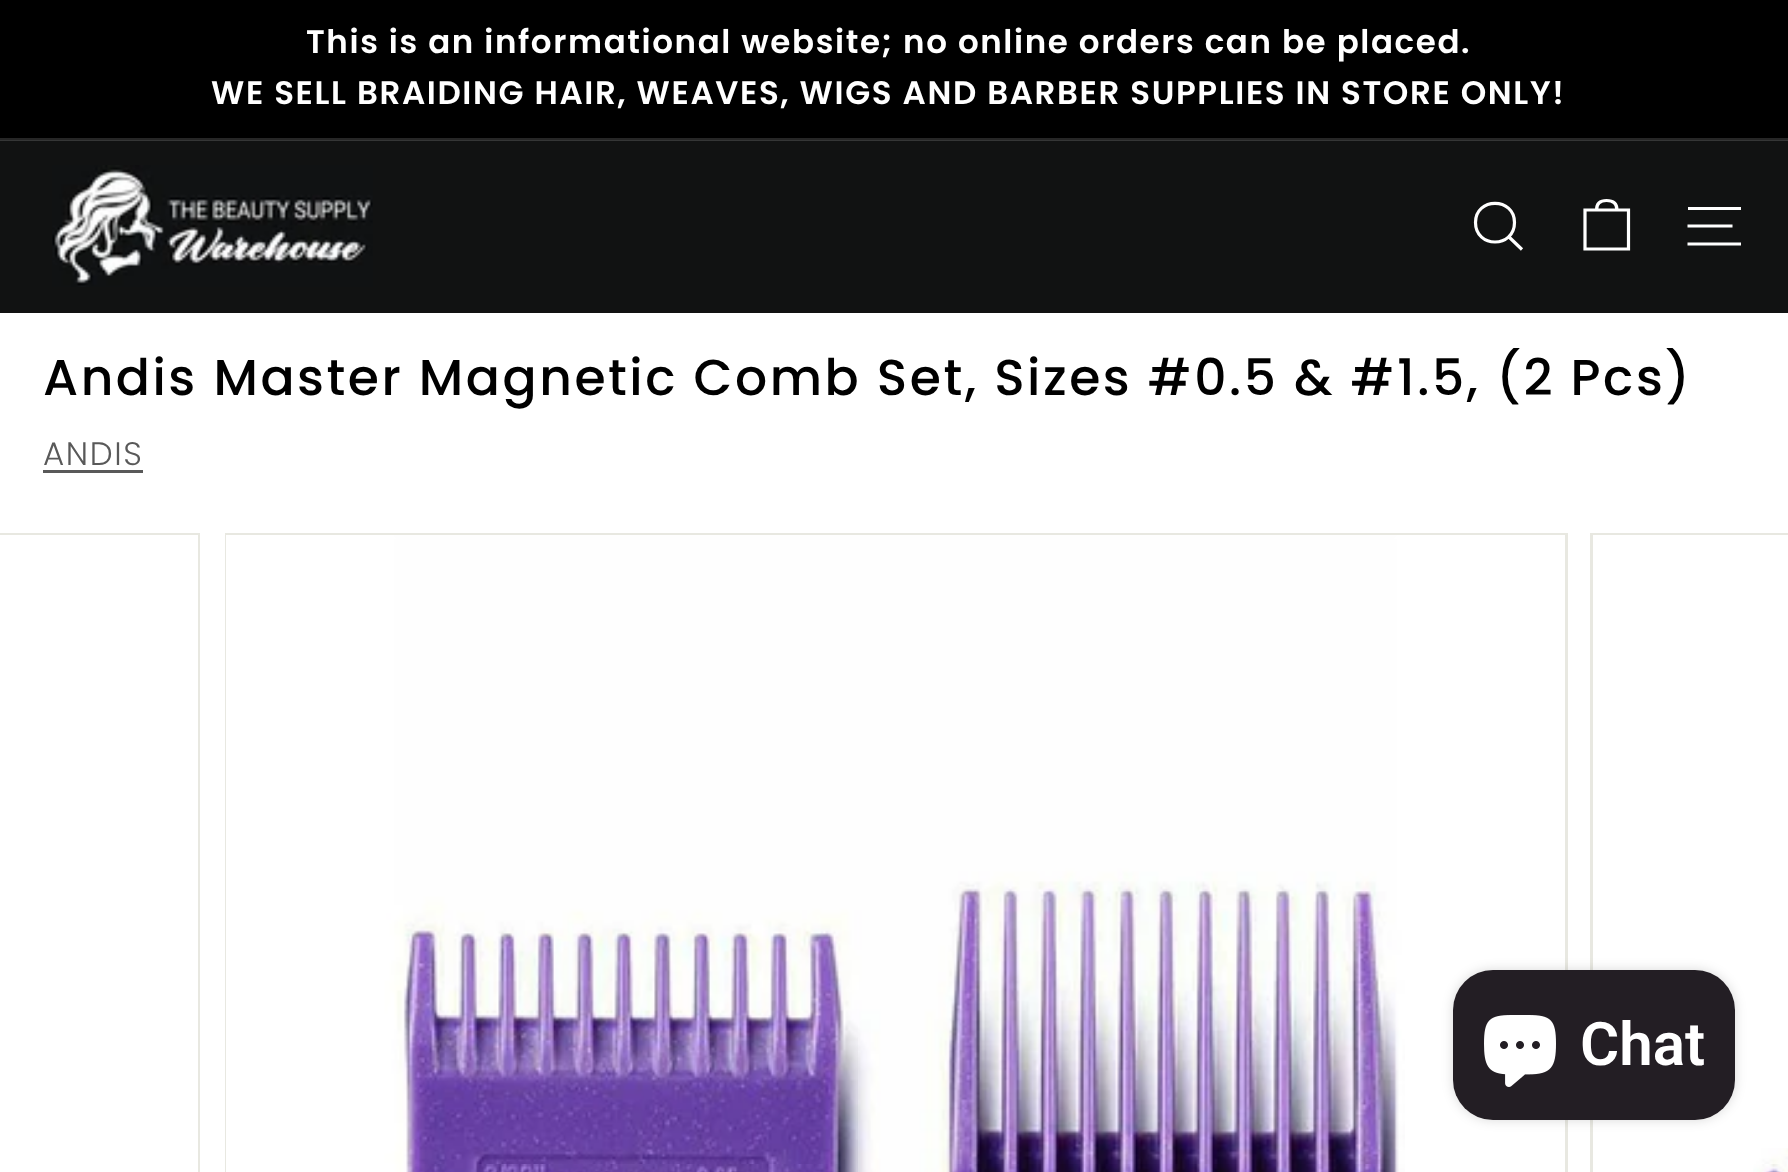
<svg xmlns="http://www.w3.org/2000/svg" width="1788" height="1172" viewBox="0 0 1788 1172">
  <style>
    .t1 { font: 600 32.5px Poppins; letter-spacing: 1.62px; fill: #fff; }
    .t2 { font: 500 50.4px Poppins; letter-spacing: 2.52px; fill: #000; }
    .t3 { font: 300 32.5px Poppins; letter-spacing: 1.62px; fill: #595959; }
    .t4 { font: 600 60px Roboto; fill: #fff; }
  </style>
  <rect width="100%" height="100%" fill="#fff"/>
  <rect x="0" y="0" width="1788" height="138" fill="#000"/>
  <rect x="0" y="138" width="1788" height="2" fill="#262626"/>
  <text x="306" y="53" class="t1">This is an informational website; no online orders can be placed.</text>
  <text x="211" y="104" class="t1">WE SELL BRAIDING HAIR, WEAVES, WIGS AND BARBER SUPPLIES IN STORE ONLY!</text>
  <rect x="0" y="141" width="1788" height="172" fill="#111212"/>
  <rect x="0" y="140" width="1788" height="1" fill="#353636"/>
  <image x="52" y="165" width="321" height="122" href="images/1.png"/>
  <path d="M1514.5 222.5C1514.5 248.5 1475.5 248.5 1475.5 222.5C1475.5 197 1514.5 197 1514.5 222.5ZM1522 249.5L1509 237" fill="none" stroke="#fff" stroke-width="3.2"/>
  <path d="M1596.5 210C1596.5 202.5 1601 200.5 1606.5 200.5C1612 200.5 1617 202.5 1617 210M1585 210H1628.5V249H1585Z" fill="none" stroke="#fff" stroke-width="3.2"/>
  <rect x="1688" y="207" width="53" height="3" fill="#fff"/>
  <path d="M1687.5 226H1732.5M1687.5 244H1741" fill="none" stroke="#fff" stroke-width="3.2"/>
  <text x="43" y="395" class="t2">Andis Master Magnetic Comb Set, Sizes #0.5 &amp; #1.5, (2 Pcs)</text>
  <text x="43" y="465" class="t3">ANDIS</text>
  <rect x="43" y="470" width="100" height="3" fill="#595959"/>
  <rect x="-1.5" y="534.5" width="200" height="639" fill="none" stroke="#e8e8e1" stroke-width="3"/>
  <rect x="0" y="535" width="198" height="637" fill="#fff"/>
  <rect x="226.5" y="534.5" width="1340" height="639" fill="none" stroke="#e8e8e1" stroke-width="3"/>
  <rect x="1405" y="535" width="160" height="1" fill="#fff"/>
  <image x="226" y="535" width="1179" height="637" href="images/2.png"/>
  <rect x="1591.5" y="534.5" width="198" height="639" fill="none" stroke="#e8e8e1" stroke-width="3"/>
  <rect x="1593" y="535" width="195" height="1" fill="#fff"/>
  <image x="1753" y="1148" width="35" height="24" href="images/3.png"/>
  <rect x="1453" y="970" width="282" height="150" rx="40" fill="#00000026" filter="blur(6px)"/>
  <rect x="1453" y="970" width="282" height="150" rx="40" fill="#231e24"/>
  <image x="1484" y="1015" width="72" height="72" href="images/4.png"/>
  <text x="1580" y="1065" class="t4">Chat</text>
</svg>
